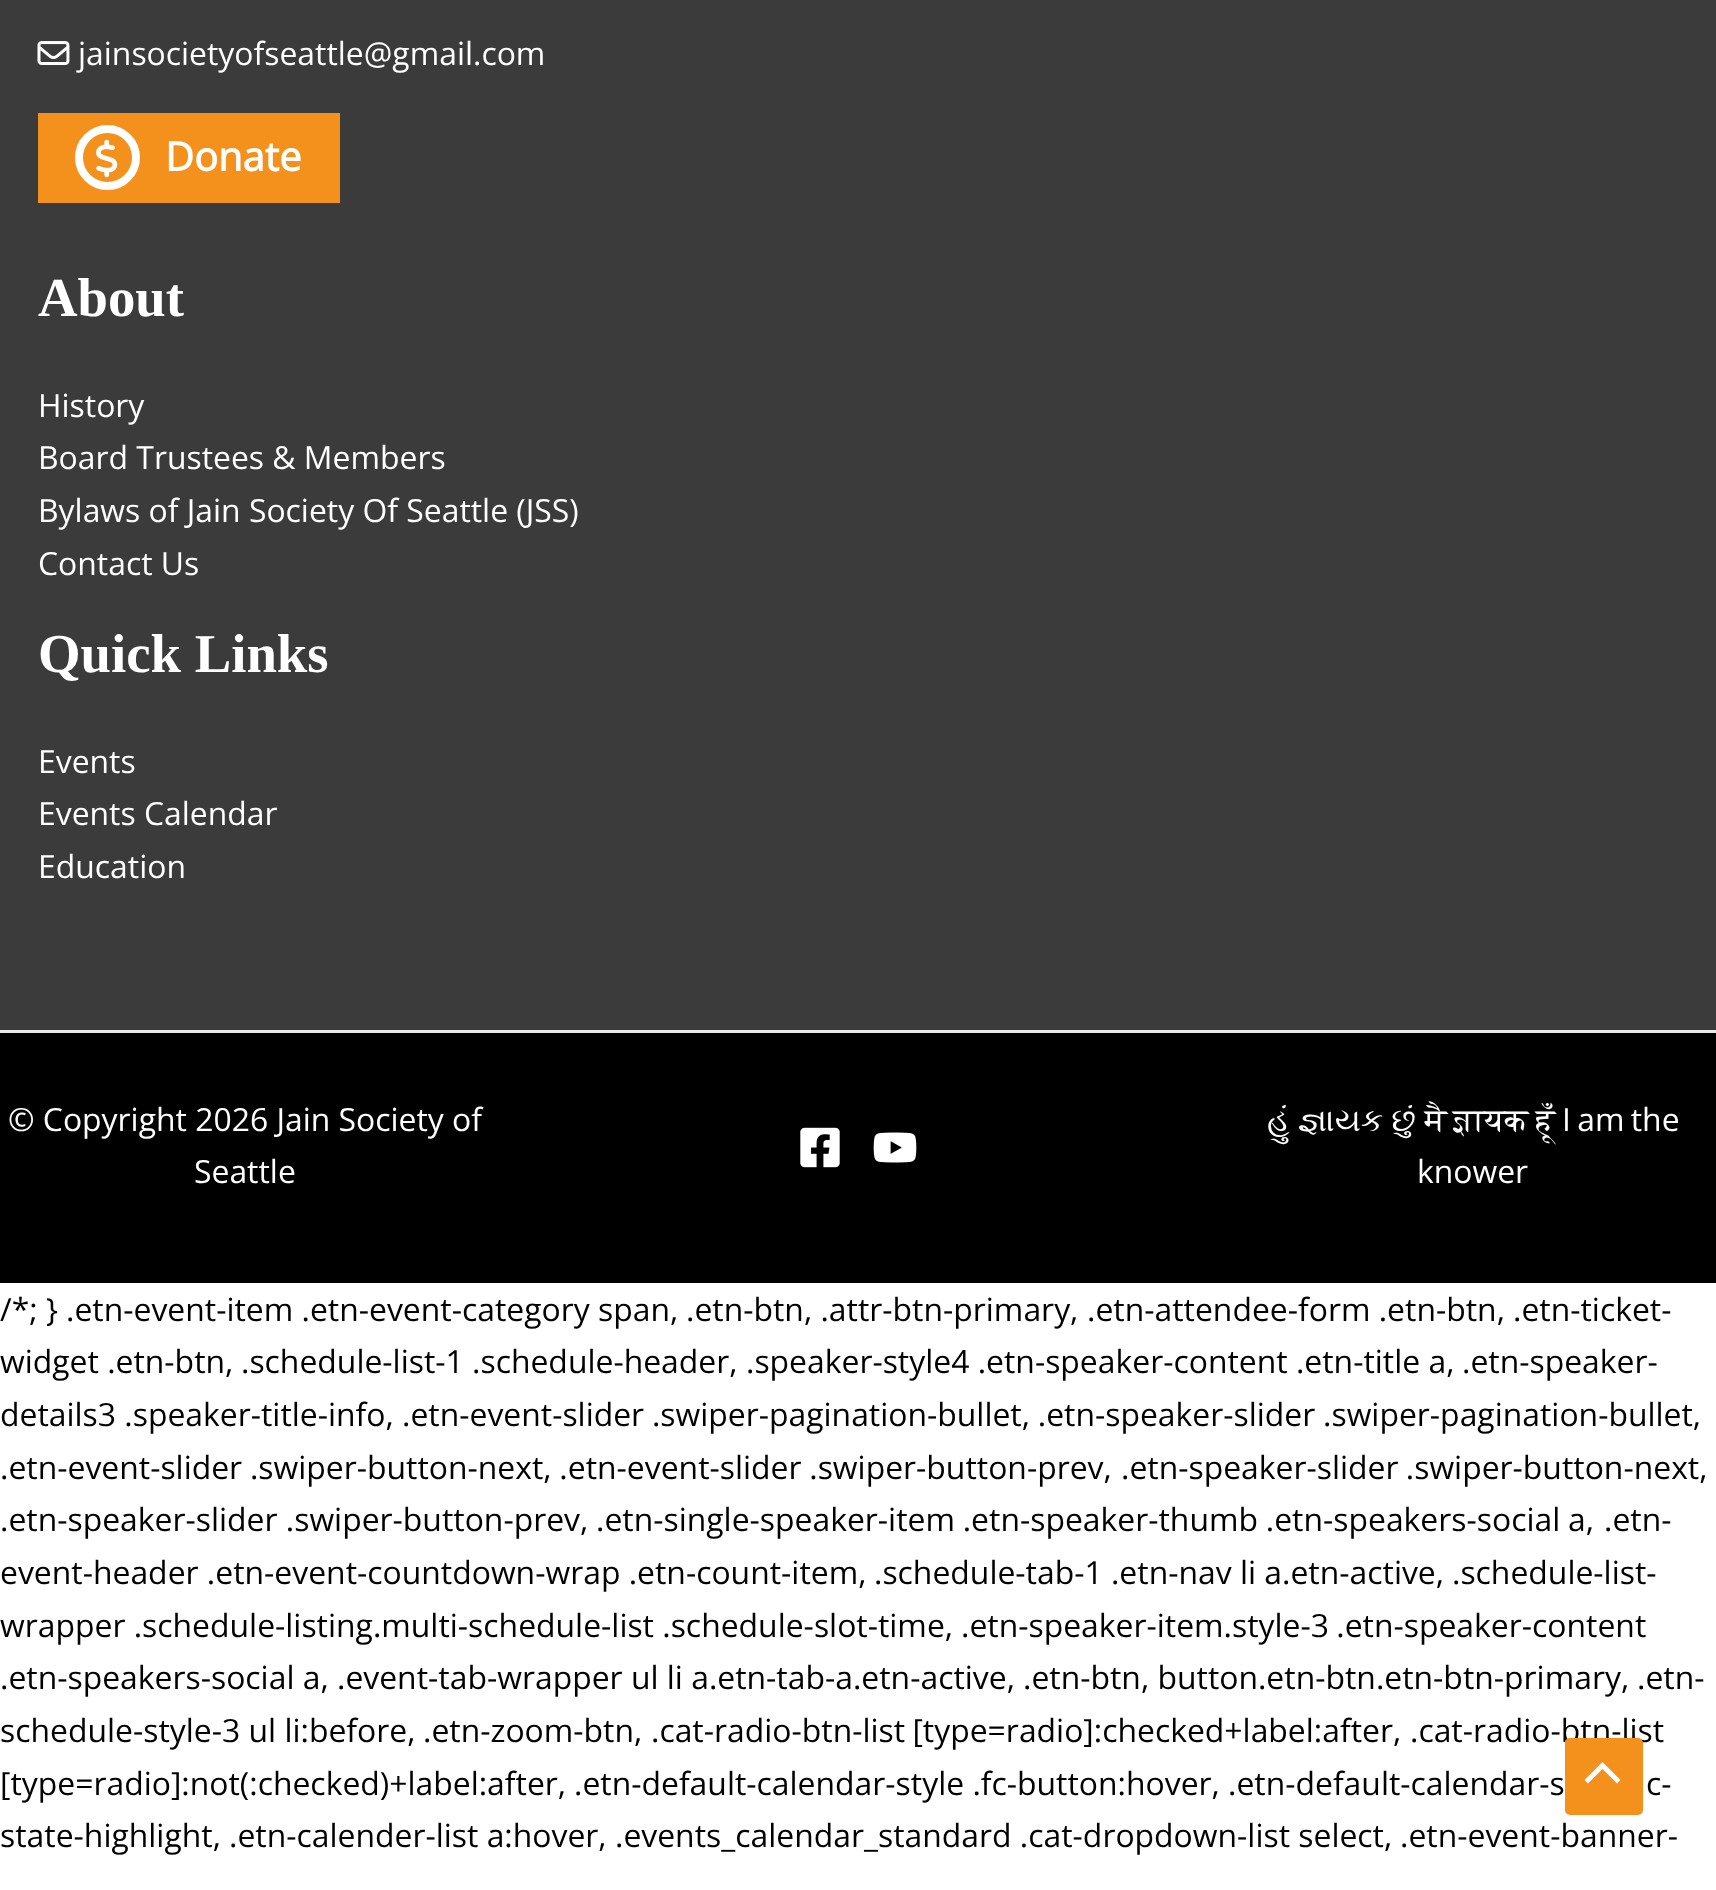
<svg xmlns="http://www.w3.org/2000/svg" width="1716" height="1890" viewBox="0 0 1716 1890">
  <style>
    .t1 { font: 31.9px Open Sans; fill: #fff; }
    .t2 { font: bold 40px Open Sans; fill: #fff; }
    .t3 { font: bold 54.75px Liberation Serif; fill: #fff; }
    .t4 { font: 31.9px FreeSerif; fill: #fff; }
    .t5 { font: 31.9px Open Sans; fill: #000; }
  </style>
  <rect width="100%" height="100%" fill="#fff"/>
  <rect x="0" y="0" width="1716" height="1030" fill="#3b3b3b"/>
  <image x="37" y="41" width="33" height="24" href="images/1.png"/>
  <text x="78" y="65" class="t1">jainsocietyofseattle@gmail.com</text>
  <rect x="38" y="113" width="302" height="90" fill="#f4911d"/>
  <circle cx="107.5" cy="157.5" r="28.5" fill="none" stroke="#fff" stroke-width="8"/>
  <image x="96" y="139" width="22" height="39" href="images/2.png"/>
  <text x="165" y="171" class="t2">Donate</text>
  <text x="38" y="316" class="t3">About</text>
  <text x="38" y="417" class="t1">History</text>
  <text x="38" y="469" class="t1">Board Trustees &amp; Members</text>
  <text x="38" y="522" class="t1">Bylaws of Jain Society Of Seattle (JSS)</text>
  <text x="38" y="575" class="t1">Contact Us</text>
  <text x="38" y="672" class="t3">Quick Links</text>
  <text x="38" y="773" class="t1">Events</text>
  <text x="38" y="825" class="t1">Events Calendar</text>
  <text x="38" y="878" class="t1">Education</text>
  <rect x="0" y="1033" width="1716" height="250" fill="#000"/>
  <rect x="0" y="1030" width="1716" height="3" fill="#eaeaea"/>
  <text x="8" y="1131" class="t1">© Copyright 2026 Jain Society of</text>
  <text x="194" y="1183" class="t1">Seattle</text>
  <image x="800" y="1127" width="40" height="41" href="images/3.png"/>
  <image x="873" y="1132" width="44" height="31" href="images/4.png"/>
  <text x="1267" y="1131" class="t4">હું જ્ઞાયક છું</text>
  <text x="1425" y="1131" class="t4">मै</text>
  <text x="1453" y="1131" class="t4">ज्ञायक</text>
  <text x="1536" y="1131" class="t4">हूँ</text>
  <text x="1562" y="1131" word-spacing="-2" class="t1">I am the</text>
  <text x="1417" y="1183" class="t1">knower</text>
  <text x="0" y="1321" class="t5">/*; }</text>
  <text x="66" y="1321" class="t5">.etn-event-item .etn-event-category span,</text>
  <text x="686" y="1321" class="t5">.etn-btn, .attr-btn-primary,</text>
  <text x="1087" y="1321" class="t5">.etn-attendee-form .etn-btn,</text>
  <text x="1513" y="1321" class="t5">.etn-ticket-</text>
  <text x="0" y="1373" class="t5">widget .etn-btn,</text>
  <text x="241" y="1373" class="t5">.schedule-list-1 .schedule-header,</text>
  <text x="746" y="1373" class="t5">.speaker-style4 .etn-speaker-content .etn-title a,</text>
  <text x="1462" y="1373" class="t5">.etn-speaker-</text>
  <text x="0" y="1426" class="t5">details3 .speaker-title-info,</text>
  <text x="402" y="1426" word-spacing="-0.5" class="t5">.etn-event-slider .swiper-pagination-bullet, .etn-speaker-slider .swiper-pagination-bullet,</text>
  <text x="0" y="1479" word-spacing="-0.5" class="t5">.etn-event-slider .swiper-button-next, .etn-event-slider .swiper-button-prev,</text>
  <text x="1121" y="1479" word-spacing="-1" class="t5">.etn-speaker-slider .swiper-button-next,</text>
  <text x="0" y="1531" class="t5">.etn-speaker-slider .swiper-button-prev,</text>
  <text x="596" y="1531" word-spacing="-0.5" class="t5">.etn-single-speaker-item .etn-speaker-thumb .etn-speakers-social a,</text>
  <text x="1604" y="1531" class="t5">.etn-</text>
  <text x="0" y="1584" class="t5">event-header .etn-event-countdown-wrap .etn-count-item,</text>
  <text x="874" y="1584" class="t5">.schedule-tab-1 .etn-nav li a.etn-active,</text>
  <text x="1452" y="1584" class="t5">.schedule-list-</text>
  <text x="0" y="1637" class="t5">wrapper .schedule-listing.multi-schedule-list .schedule-slot-time,</text>
  <text x="961" y="1637" word-spacing="-1" class="t5">.etn-speaker-item.style-3 .etn-speaker-content</text>
  <text x="0" y="1689" class="t5">.etn-speakers-social a,</text>
  <text x="337" y="1689" class="t5">.event-tab-wrapper ul li a.etn-tab-a.etn-active,</text>
  <text x="1023" y="1689" class="t5">.etn-btn, button.etn-btn.etn-btn-primary,</text>
  <text x="1637" y="1689" class="t5">.etn-</text>
  <text x="0" y="1742" class="t5">schedule-style-3 ul li:before,</text>
  <text x="423" y="1742" class="t5">.etn-zoom-btn,</text>
  <text x="651" y="1742" word-spacing="-1" class="t5">.cat-radio-btn-list [type=radio]:checked+label:after,</text>
  <text x="1410" y="1742" class="t5">.cat-radio-btn-list</text>
  <text x="0" y="1795" class="t5">[type=radio]:not(:checked)+label:after,</text>
  <text x="574" y="1795" class="t5">.etn-default-calendar-style .fc-button:hover,</text>
  <text x="1228" y="1795" class="t5">.etn-default-calendar-s</text>
  <rect x="1565" y="1738" width="78" height="77" rx="5" fill="#f4911d"/>
  <path d="M1620.5 1780L1602.5 1762L1584.5 1780L1588 1783.5L1602.5 1769L1617 1783.5Z" fill="#fff"/>
  <text x="1646" y="1795" class="t5">c-</text>
  <text x="0" y="1847" class="t5">state-highlight,</text>
  <text x="229" y="1847" class="t5">.etn-calender-list a:hover,</text>
  <text x="615" y="1847" class="t5">.events_calendar_standard .cat-dropdown-list select,</text>
  <text x="1400" y="1847" class="t5">.etn-event-banner-</text>
</svg>
